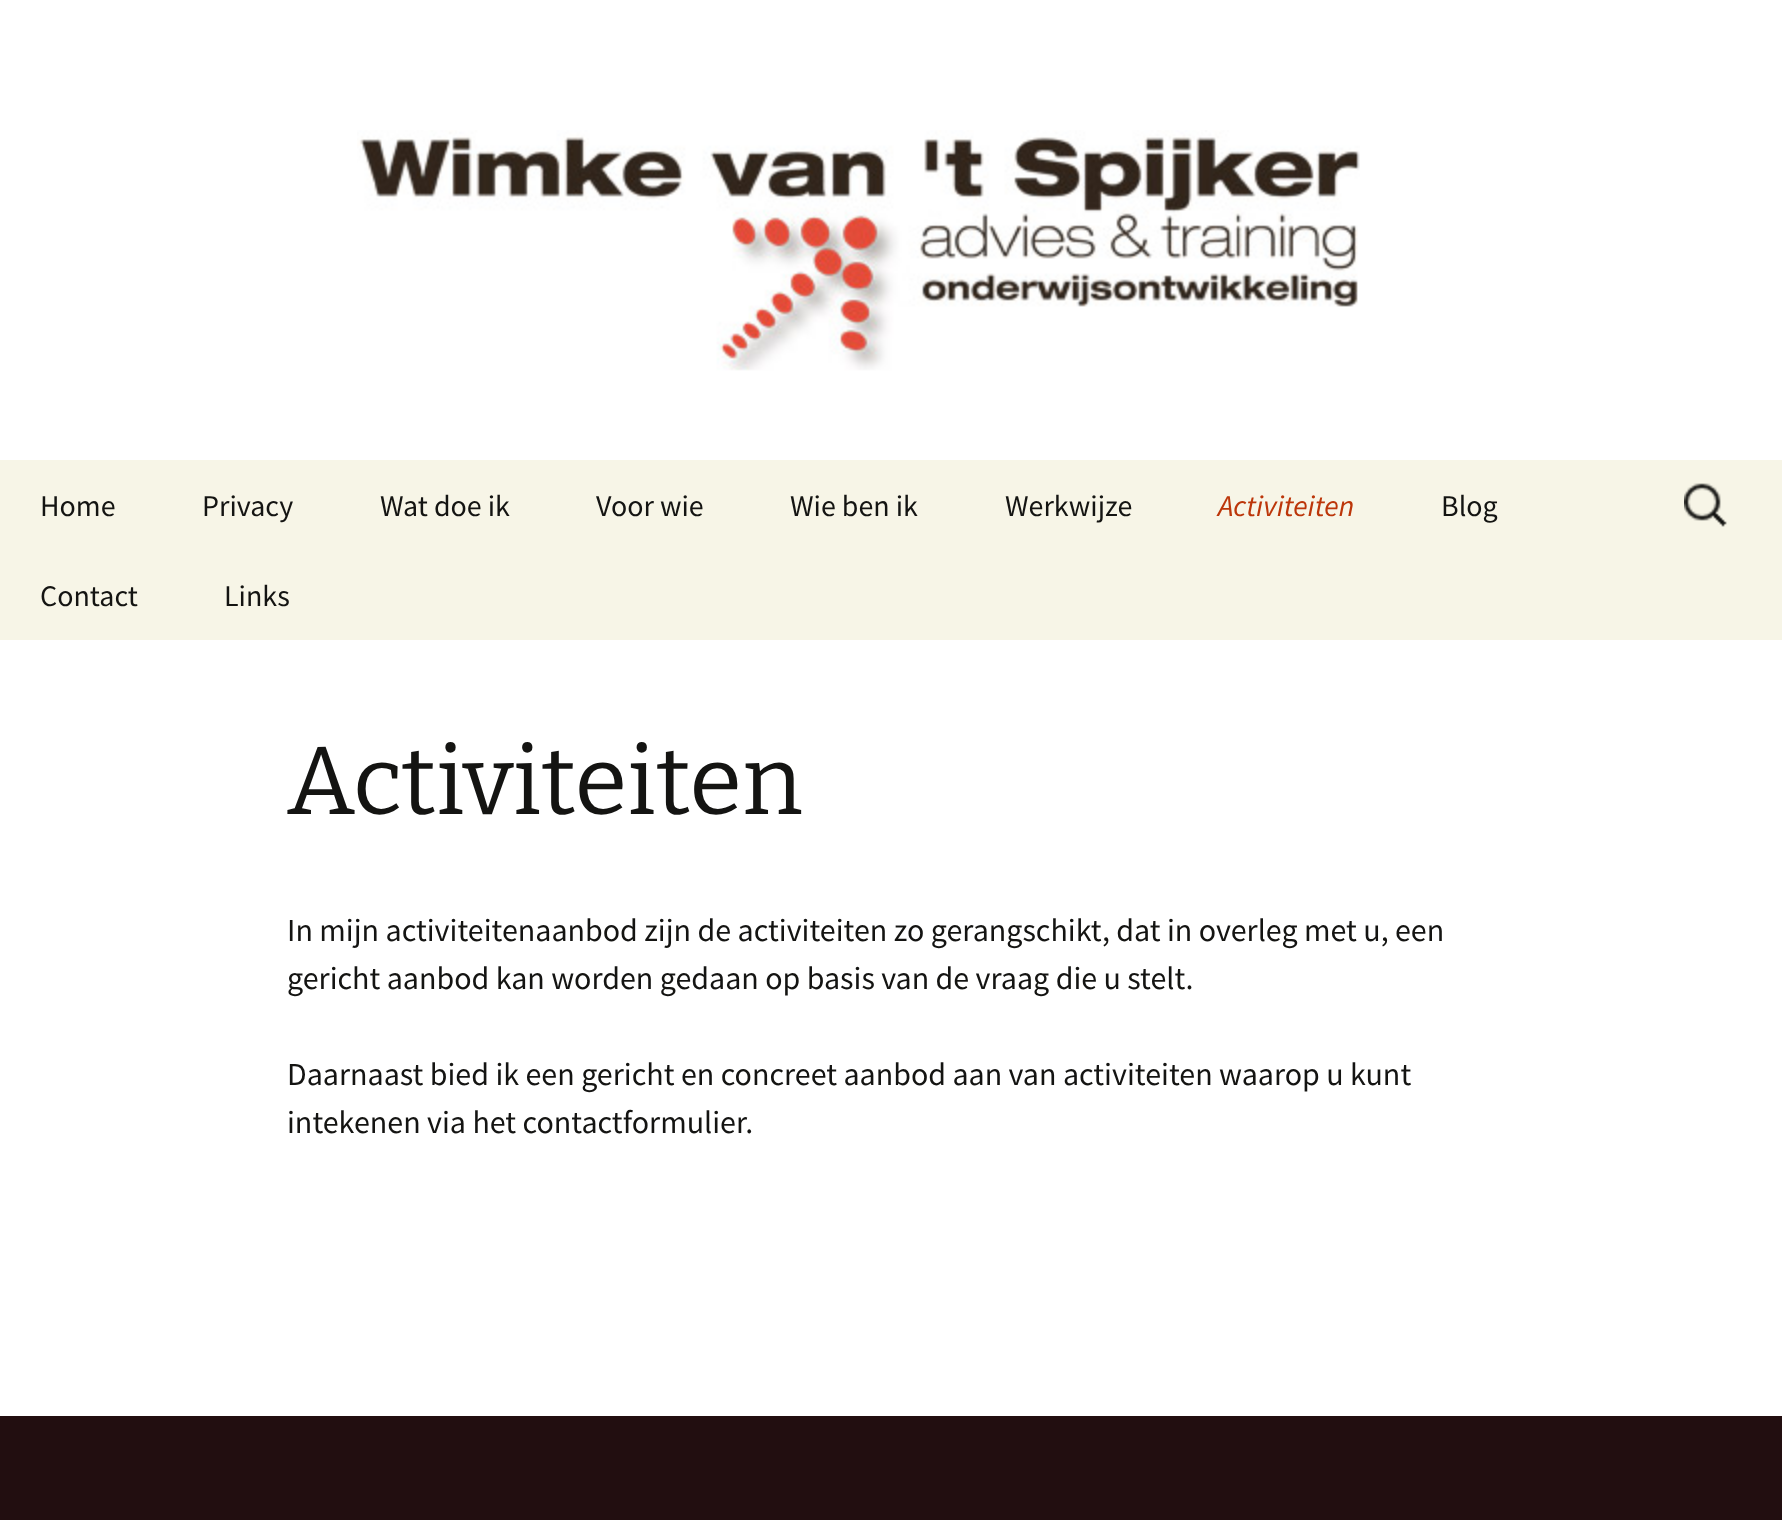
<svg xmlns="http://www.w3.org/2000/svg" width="1782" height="1520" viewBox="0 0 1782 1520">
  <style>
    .t1 { font: 30px Source Sans Pro; fill: #141412; }
    .t2 { font: italic 30px Source Sans Pro; fill: #bc360a; }
    .t3 { font: 100 96px Bitter; fill: #141412; }
    .t4 { font: 32px Source Sans Pro; fill: #141412; }
  </style>
  <rect width="100%" height="100%" fill="#fff"/>
  <image x="357" y="130" width="1003" height="241" href="images/1.png"/>
  <rect x="0" y="460" width="1782" height="180" fill="#f7f5e7"/>
  <text x="40" y="516" class="t1">Home</text>
  <text x="202" y="516" class="t1">Privacy</text>
  <text x="380" y="516" class="t1">Wat doe ik</text>
  <text x="596" y="516" class="t1">Voor wie</text>
  <text x="790" y="516" class="t1">Wie ben ik</text>
  <text x="1005" y="516" class="t1">Werkwijze</text>
  <text x="1218" y="516" class="t2">Activiteiten</text>
  <text x="1441" y="516" class="t1">Blog</text>
  <text x="40" y="606" class="t1">Contact</text>
  <text x="224" y="606" class="t1">Links</text>
  <image x="1684" y="483" width="43" height="44" href="images/2.png"/>
  <text x="287" y="814" class="t3">Activiteiten</text>
  <text x="287" y="941" class="t4">In mijn activiteitenaanbod zijn de activiteiten zo gerangschikt, dat in overleg met u, een</text>
  <text x="287" y="989" class="t4">gericht aanbod kan worden gedaan op basis van de vraag die u stelt.</text>
  <text x="287" y="1085" class="t4">Daarnaast bied ik een gericht en concreet aanbod aan van activiteiten waarop u kunt</text>
  <text x="287" y="1133" class="t4">intekenen via het contactformulier.</text>
  <rect x="0" y="1416" width="1782" height="104" fill="#220e10"/>
</svg>
